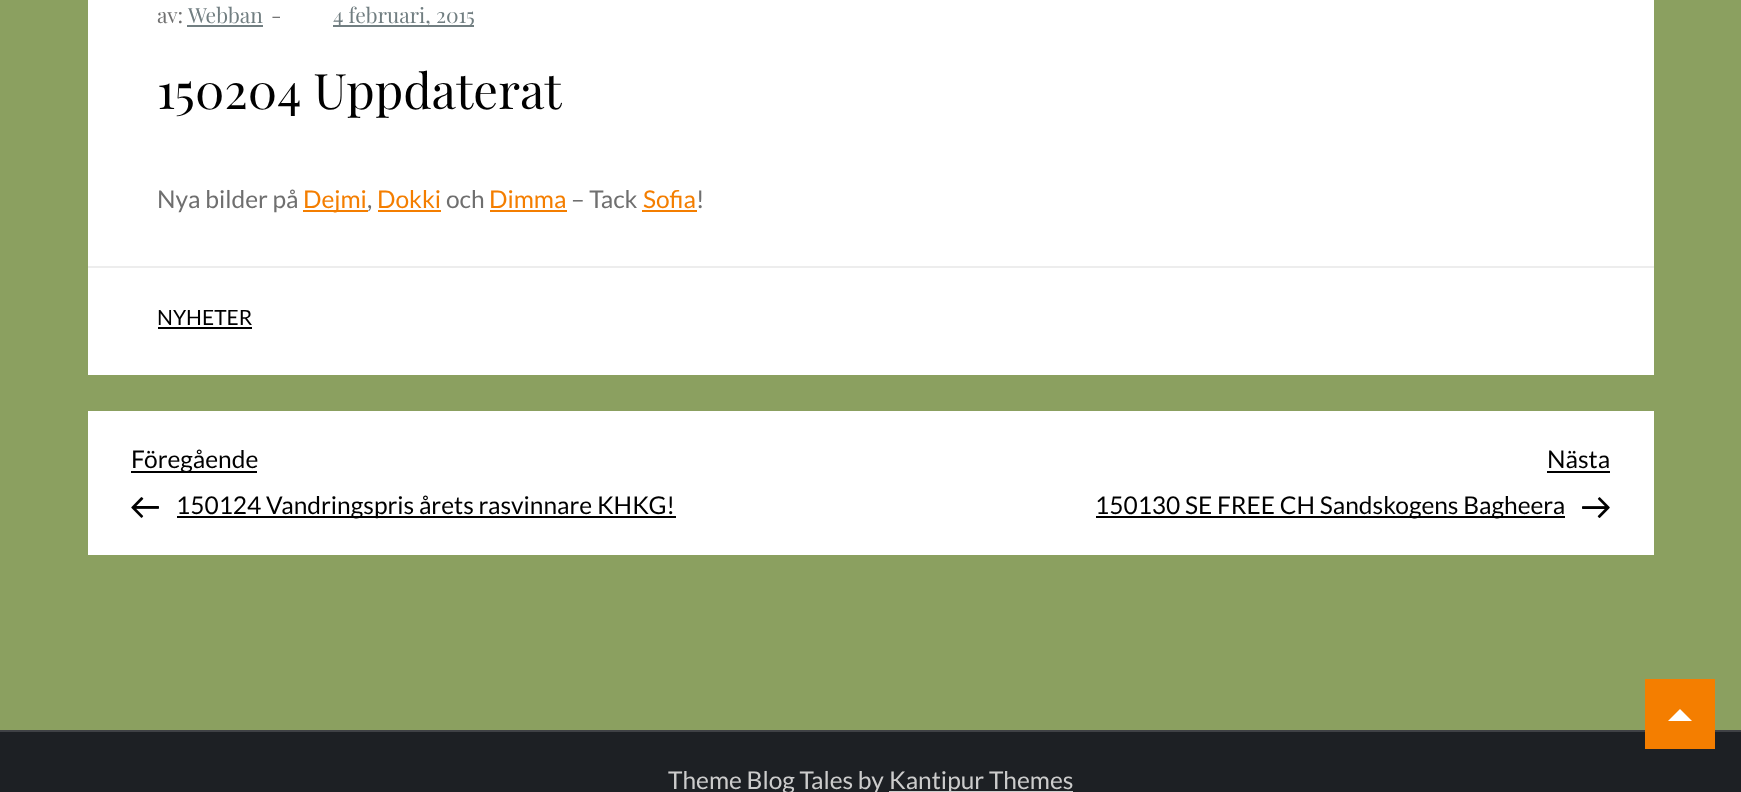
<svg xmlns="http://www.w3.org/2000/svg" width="1741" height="792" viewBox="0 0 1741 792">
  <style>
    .t1 { font: 21px Playfair Display; fill: #6f6f6f; }
    .t2 { font: 21px Playfair Display; fill: #717e81; }
    .t3 { font: 49px Playfair Display; fill: #000; }
    .t4 { font: 24.5px Lato; fill: #6f6f6f; }
    .t5 { font: 24.5px Lato; fill: #f47e00; }
    .t6 { font: 21px Lato; fill: #000; }
    .t7 { font: 24.5px Lato; fill: #000; }
    .t8 { font: 24.5px Lato; fill: #ccc; }
  </style>
  <rect width="100%" height="100%" fill="#8ba060"/>
  <rect x="88" y="0" width="1566" height="375" fill="#fff"/>
  <text x="157" y="23" class="t1">av:</text>
  <rect x="187" y="25" width="76" height="2" fill="#717e81"/>
  <text x="188" y="23" class="t2">Webban</text>
  <text x="271" y="23" class="t1">-</text>
  <rect x="333" y="25" width="141" height="2" fill="#717e81"/>
  <text x="333" y="23" class="t2">4 februari, 2015</text>
  <text x="157" y="109" class="t3">150204 Uppdaterat</text>
  <rect x="88" y="266" width="1566" height="2" fill="#ededed"/>
  <text x="157" y="208" class="t4">Nya bilder på</text>
  <rect x="303" y="210" width="65" height="2" fill="#f47e00"/>
  <text x="303" y="208" class="t5">Dejmi</text>
  <text x="367" y="208" class="t4">,</text>
  <text x="377" y="208" class="t5">Dokki</text>
  <rect x="378" y="210" width="63" height="2" fill="#f47e00"/>
  <text x="446" y="208" class="t4">och</text>
  <text x="489" y="208" class="t5">Dimma</text>
  <rect x="490" y="210" width="77" height="2" fill="#f47e00"/>
  <text x="571" y="208" class="t4">– Tack</text>
  <text x="643" y="208" class="t5">Sofia</text>
  <rect x="642" y="210" width="55" height="2" fill="#f47e00"/>
  <text x="696" y="208" class="t4">!</text>
  <text x="157" y="325" class="t6">NYHETER</text>
  <rect x="158" y="327" width="94" height="2" fill="#000"/>
  <rect x="88" y="411" width="1566" height="144" fill="#fff"/>
  <rect x="131" y="471" width="126" height="2" fill="#000"/>
  <text x="131" y="468" class="t7">Föregående</text>
  <image x="131" y="497" width="28" height="21" href="images/1.png"/>
  <rect x="177" y="516" width="499" height="2" fill="#000"/>
  <text x="176" y="514" class="t7">150124 Vandringspris årets rasvinnare KHKG!</text>
  <text x="1547" y="468" class="t7">Nästa</text>
  <rect x="1547" y="471" width="63" height="2" fill="#000"/>
  <rect x="1096" y="516" width="469" height="2" fill="#000"/>
  <text x="1095" y="514" class="t7">150130 SE FREE CH Sandskogens Bagheera</text>
  <image x="1582" y="497" width="28" height="21" href="images/2.png"/>
  <rect x="0" y="732" width="1741" height="60" fill="#1d2024"/>
  <rect x="0" y="730" width="1741" height="2" fill="#3f4145"/>
  <rect x="1645" y="679" width="70" height="70" fill="#f47e00"/>
  <path d="M1692 721H1668L1680 709Z" fill="#fff"/>
  <text x="668" y="789" class="t8">Theme Blog Tales by</text>
  <rect x="889" y="791" width="184" height="1" fill="#ccc"/>
  <text x="889" y="789" class="t8">Kantipur Themes</text>
</svg>
